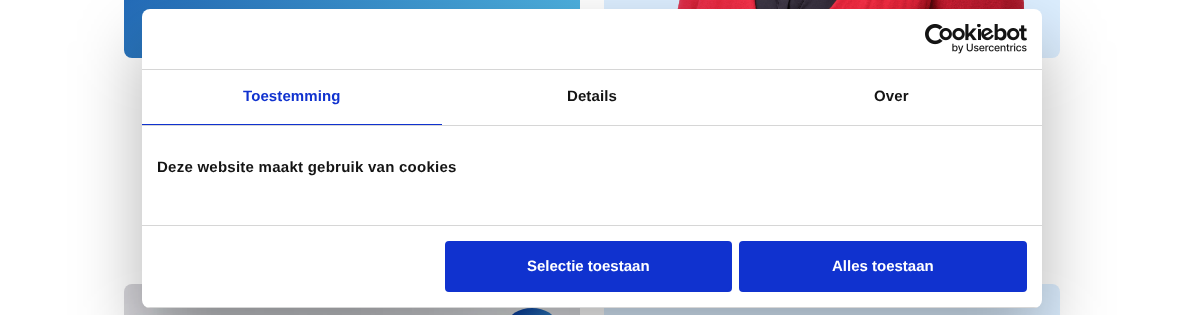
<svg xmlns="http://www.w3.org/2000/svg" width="1183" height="315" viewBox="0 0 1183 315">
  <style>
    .t1 { font: bold 15px Liberation Sans; letter-spacing: 0.1px; fill: #1032cf; }
    .t2 { font: bold 15px Liberation Sans; letter-spacing: 0.1px; fill: #141414; }
    .t3 { font: bold 15px Liberation Sans; letter-spacing: 0.25px; fill: #141414; }
    .t4 { font: bold 15px Liberation Sans; fill: #fff; }
  </style>
  <defs>
    <linearGradient id="g1" gradientUnits="userSpaceOnUse" x1="123" y1="-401" x2="581" y2="57"><stop offset="0" stop-color="#003097"/><stop offset="1" stop-color="#52b9e4"/></linearGradient>
    <linearGradient id="g2" gradientUnits="userSpaceOnUse" x1="508" y1="308" x2="556" y2="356"><stop offset="0" stop-color="#003097"/><stop offset="1" stop-color="#52b9e4"/></linearGradient>
    <clipPath id="clip1"><rect x="142" y="9" width="900" height="299" rx="8"/></clipPath>
  </defs>
  <rect width="100%" height="100%" fill="#fff"/>
  <rect x="124" y="-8" width="456" height="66" rx="8" fill="url(#g1)"/>
  <rect x="604" y="-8" width="456" height="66" rx="8" fill="#dceeff"/>
  <image x="677" y="0" width="348" height="9" href="images/1.png"/>
  <image x="124" y="284" width="456" height="31" href="images/2.png"/>
  <rect x="508" y="308" width="48" height="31" rx="24" fill="url(#g2)"/>
  <rect x="604" y="284" width="456" height="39" rx="8" fill="#dceeff"/>
  <rect x="142" y="41" width="900" height="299" rx="8" fill="#0000004d" filter="blur(34px)"/>
  <rect x="142" y="9" width="900" height="299" rx="8" fill="#fff"/>
  <rect x="142" y="69" width="900" height="1" fill="#d6d6d6"/>
  <image x="925" y="24" width="102" height="30" href="images/3.png"/>
  <rect x="142" y="125" width="900" height="1" fill="#d6d6d6"/>
  <rect x="142" y="124" width="300" height="1" fill="#1032cf"/>
  <text x="243" y="101" class="t1">Toestemming</text>
  <text x="567" y="101" class="t2">Details</text>
  <text x="874" y="101" class="t2">Over</text>
  <rect x="142" y="225" width="900" height="1" fill="#d6d6d6"/>
  <text x="157" y="172" class="t3">Deze website maakt gebruik van cookies</text>
  <g clip-path="url(#clip1)">
    <rect x="142" y="307" width="900" height="1" fill="#d6d6d6"/>
  </g>
  <rect x="446" y="242" width="285" height="49" rx="3" fill="#1032cf" stroke="#1032cf" stroke-width="2"/>
  <text x="527" y="271" class="t4">Selectie toestaan</text>
  <rect x="740" y="242" width="286" height="49" rx="3" fill="#1032cf" stroke="#1032cf" stroke-width="2"/>
  <text x="832" y="271" class="t4">Alles toestaan</text>
</svg>
